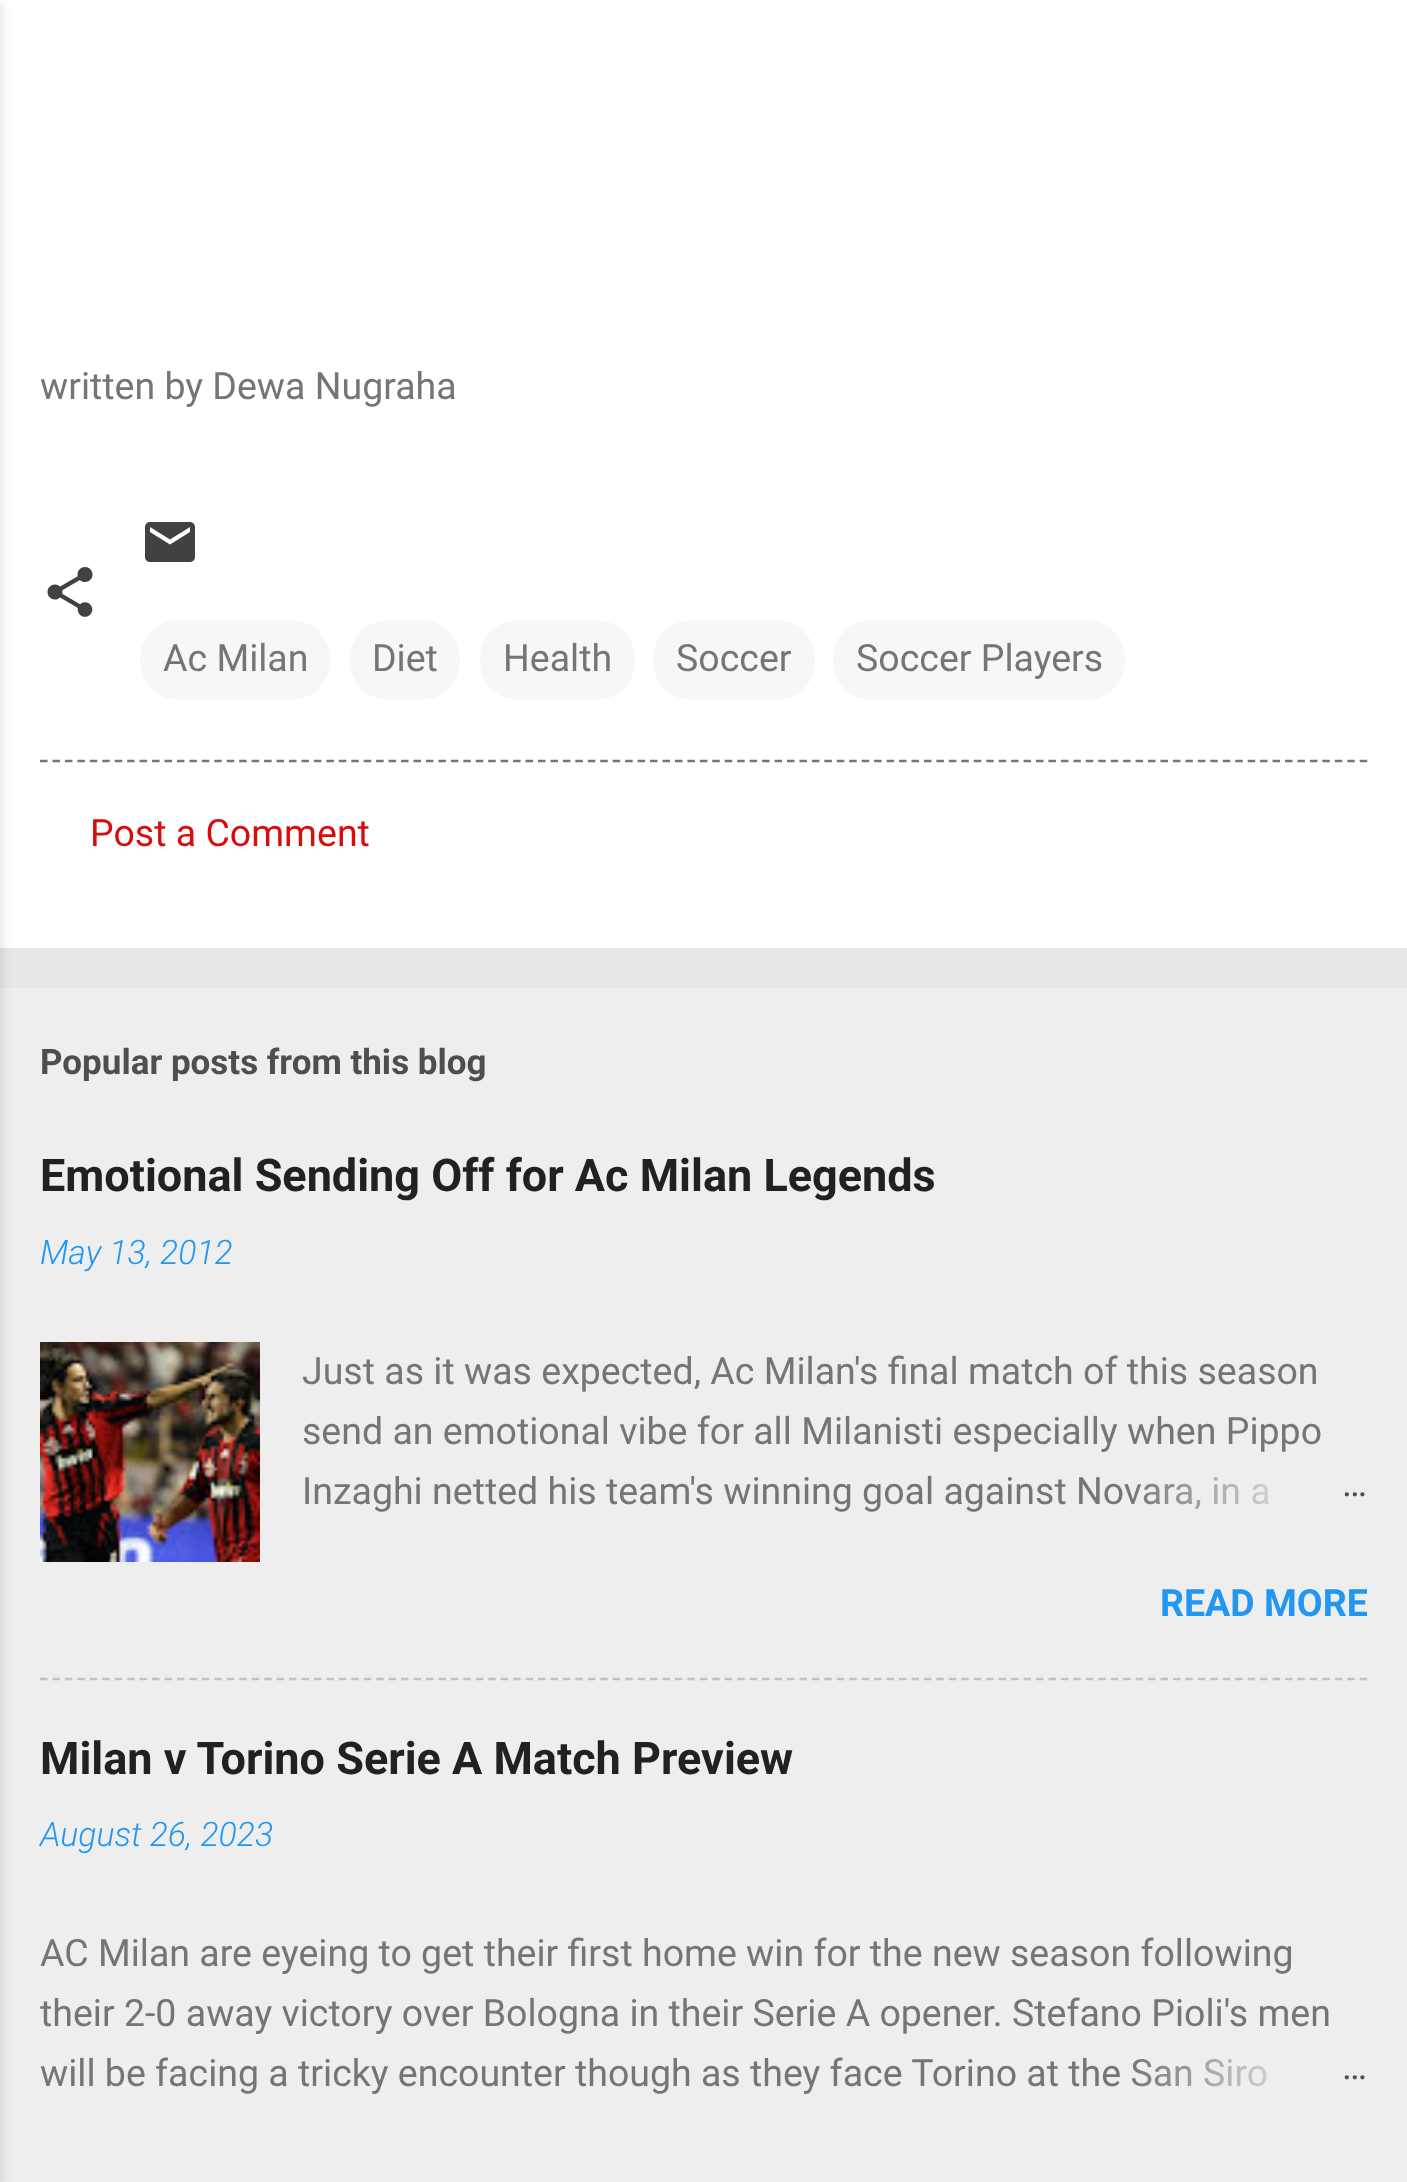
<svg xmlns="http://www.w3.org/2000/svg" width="1407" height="2182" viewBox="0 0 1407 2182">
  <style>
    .t1 { font: 37.5px Roboto; fill: #757575; }
    .t2 { font: 37.5px Roboto; fill: #d90c0c; }
    .t3 { font: bold 35px Roboto; fill: #4e4e4e; }
    .t4 { font: bold 45px Roboto; fill: #212121; }
    .t5 { font: italic 300 33.75px Roboto; fill: #2196f3; }
    .t6 { font: 37.5px Roboto; fill: #4e4e4e; }
    .t7 { font: bold 37.5px Roboto; fill: #2196f3; }
  </style>
  <defs>
    <linearGradient id="g1" gradientUnits="userSpaceOnUse" x1="1368" y1="1493" x2="1128" y2="1493"><stop offset="0" stop-color="#eee"/><stop offset="0.2" stop-color="#eee"/><stop offset="1" stop-color="#eee" stop-opacity="0"/></linearGradient>
    <linearGradient id="g2" gradientUnits="userSpaceOnUse" x1="1368" y1="2075" x2="1128" y2="2075"><stop offset="0" stop-color="#eee"/><stop offset="0.2" stop-color="#eee"/><stop offset="1" stop-color="#eee" stop-opacity="0"/></linearGradient>
  </defs>
  <rect width="100%" height="100%" fill="#e7e7e7"/>
  <rect x="0" y="0" width="1407" height="948" fill="#fff"/>
  <rect x="0" y="988" width="1407" height="1194" fill="#eee"/>
  <rect x="-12" y="3" width="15" height="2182" fill="#0000001a" filter="blur(4px)"/>
  <text x="40" y="399" class="t1">written by Dewa Nugraha</text>
  <image x="47" y="567" width="46" height="50" href="images/1.png"/>
  <image x="145" y="522" width="50" height="40" href="images/2.png"/>
  <rect x="140" y="620" width="190" height="80" rx="38" fill="#f7f7f7"/>
  <text x="163" y="671" class="t1">Ac Milan</text>
  <rect x="350" y="620" width="110" height="80" rx="38" fill="#f7f7f7"/>
  <text x="372" y="671" class="t1">Diet</text>
  <rect x="480" y="620" width="155" height="80" rx="38" fill="#f7f7f7"/>
  <text x="503" y="671" class="t1">Health</text>
  <rect x="653" y="620" width="162" height="80" rx="38" fill="#f7f7f7"/>
  <text x="676" y="671" class="t1">Soccer</text>
  <rect x="833" y="620" width="292" height="80" rx="38" fill="#f7f7f7"/>
  <text x="856" y="671" class="t1">Soccer Players</text>
  <path d="M40 761H1367.5" fill="none" stroke="#757575" stroke-width="2.5" stroke-dasharray="7.5 4.95"/>
  <text x="90" y="846" class="t2">Post a Comment</text>
  <text x="40" y="1074" class="t3">Popular posts from this blog</text>
  <text x="40" y="1191" class="t4">Emotional Sending Off for Ac Milan Legends</text>
  <text x="40" y="1264" class="t5">May 13, 2012</text>
  <image x="40" y="1342" width="220" height="220" href="images/3.png"/>
  <text x="302" y="1384" class="t1">Just as it was expected, Ac Milan's final match of this season</text>
  <text x="302" y="1444" class="t1">send an emotional vibe for all Milanisti especially when Pippo</text>
  <text x="302" y="1504" class="t1">Inzaghi netted his team's winning goal against Novara, in a</text>
  <rect x="1132" y="1477" width="137" height="33" fill="url(#g1)"/>
  <text x="1342" y="1496" class="t6">…</text>
  <text x="1160" y="1616" class="t7">READ MORE</text>
  <path d="M40 1679H1367.5" fill="none" stroke="#c2c2c2" stroke-width="2.5" stroke-dasharray="7.5 4.95"/>
  <text x="40" y="1774" class="t4">Milan v Torino Serie A Match Preview</text>
  <text x="40" y="1846" class="t5">August 26, 2023</text>
  <text x="40" y="1966" class="t1">AC Milan are eyeing to get their first home win for the new season following</text>
  <text x="40" y="2026" class="t1">their 2-0 away victory over Bologna in their Serie A opener. Stefano Pioli's men</text>
  <text x="40" y="2086" class="t1">will be facing a tricky encounter though as they face Torino at the San Siro</text>
  <rect x="1132" y="2059" width="135" height="28" fill="url(#g2)"/>
  <text x="1342" y="2079" class="t6">…</text>
</svg>
